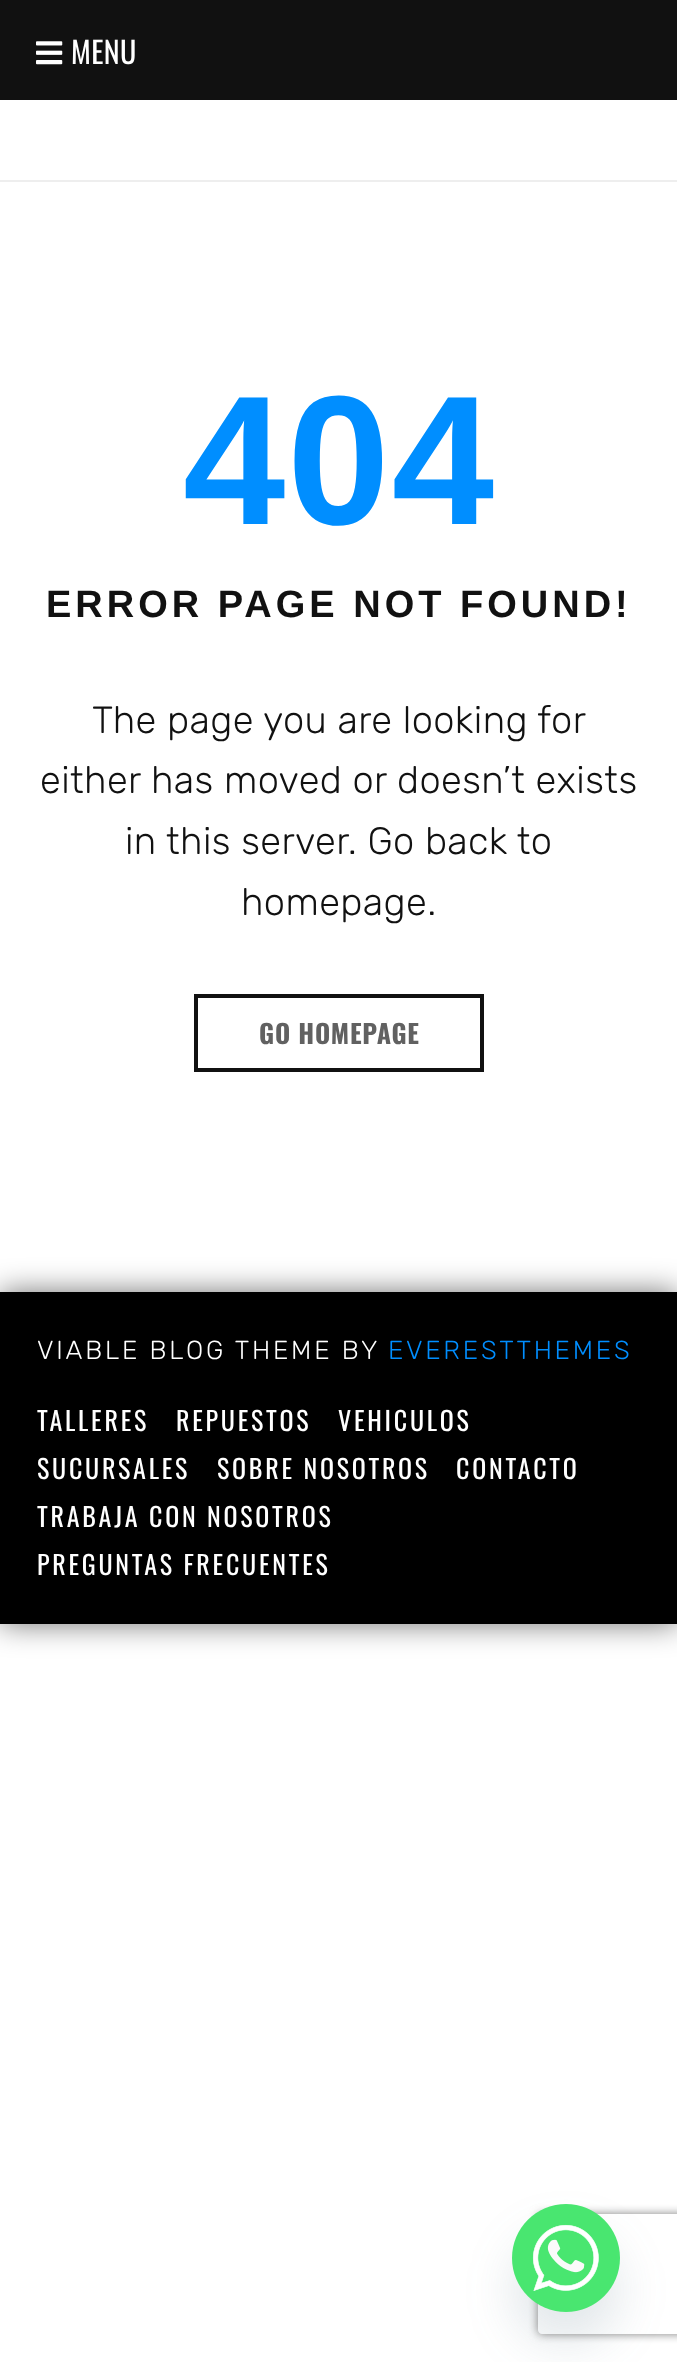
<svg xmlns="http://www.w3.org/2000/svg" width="677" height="2362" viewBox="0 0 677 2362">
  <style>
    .t1 { font: 30px Oswald; letter-spacing: 0.4px; fill: #fff; }
    .t2 { font: bold 184px Liberation Sans; letter-spacing: 2px; fill: #008eff; }
    .t3 { font: bold 38px Liberation Sans; letter-spacing: 4px; fill: #111; }
    .t4 { font: 300 38px Rubik; letter-spacing: 0.4px; fill: #111; }
    .t5 { font: bold 26px Oswald; letter-spacing: 0.75px; fill: #616161; }
    .t6 { font: 300 26px Rubik; letter-spacing: 2.75px; fill: #fff; }
    .t7 { font: 300 26px Rubik; letter-spacing: 2.75px; fill: #008eff; }
    .t8 { font: 26px Oswald; letter-spacing: 2.75px; fill: #fff; }
  </style>
  <defs>
    <clipPath id="clip1"><path d="M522 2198H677V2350H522ZM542 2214H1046C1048 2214 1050 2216 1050 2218V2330C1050 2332 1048 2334 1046 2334H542C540 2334 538 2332 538 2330V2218C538 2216 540 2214 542 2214Z" clip-rule="evenodd"/></clipPath>
  </defs>
  <rect width="100%" height="100%" fill="#fff"/>
  <rect x="0" y="180" width="677" height="2" fill="#eee"/>
  <rect x="0" y="0" width="677" height="100" fill="#111"/>
  <image x="36" y="41" width="27" height="24" href="images/1.png"/>
  <text x="71" y="64" class="t1">MENU</text>
  <text x="183" y="524" class="t2">404</text>
  <text x="46" y="617" class="t3">ERROR PAGE NOT FOUND!</text>
  <text x="92" y="733" class="t4">The page you are looking for</text>
  <text x="40" y="793" class="t4">either has moved or doesn’t exists</text>
  <text x="125" y="854" class="t4">in this server. Go back to</text>
  <text x="241" y="915" class="t4">homepage.</text>
  <rect x="196" y="996" width="286" height="74" fill="none" stroke="#111" stroke-width="4"/>
  <text x="259" y="1044" class="t5">GO HOMEPAGE</text>
  <rect x="0" y="1292" width="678" height="332" fill="#0000008c" filter="blur(15px)"/>
  <rect x="0" y="1292" width="677" height="332" fill="#000"/>
  <text x="37" y="1359" class="t6">VIABLE BLOG THEME BY</text>
  <text x="388" y="1359" class="t7">EVERESTTHEMES</text>
  <text x="37" y="1431" class="t8">TALLERES</text>
  <text x="176" y="1431" class="t8">REPUESTOS</text>
  <text x="338" y="1431" class="t8">VEHICULOS</text>
  <text x="37" y="1479" class="t8">SUCURSALES</text>
  <text x="217" y="1479" class="t8">SOBRE NOSOTROS</text>
  <text x="456" y="1479" class="t8">CONTACTO</text>
  <text x="37" y="1527" class="t8">TRABAJA CON NOSOTROS</text>
  <text x="37" y="1575" class="t8">PREGUNTAS FRECUENTES</text>
  <rect x="512" y="2236" width="108" height="108" rx="54" fill="#49687e29" filter="blur(24px)"/>
  <g clip-path="url(#clip1)">
    <rect x="538" y="2214" width="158" height="120" rx="4" fill="#808080" filter="blur(5px)"/>
  </g>
  <image x="512" y="2204" width="108" height="108" href="images/2.png"/>
</svg>
